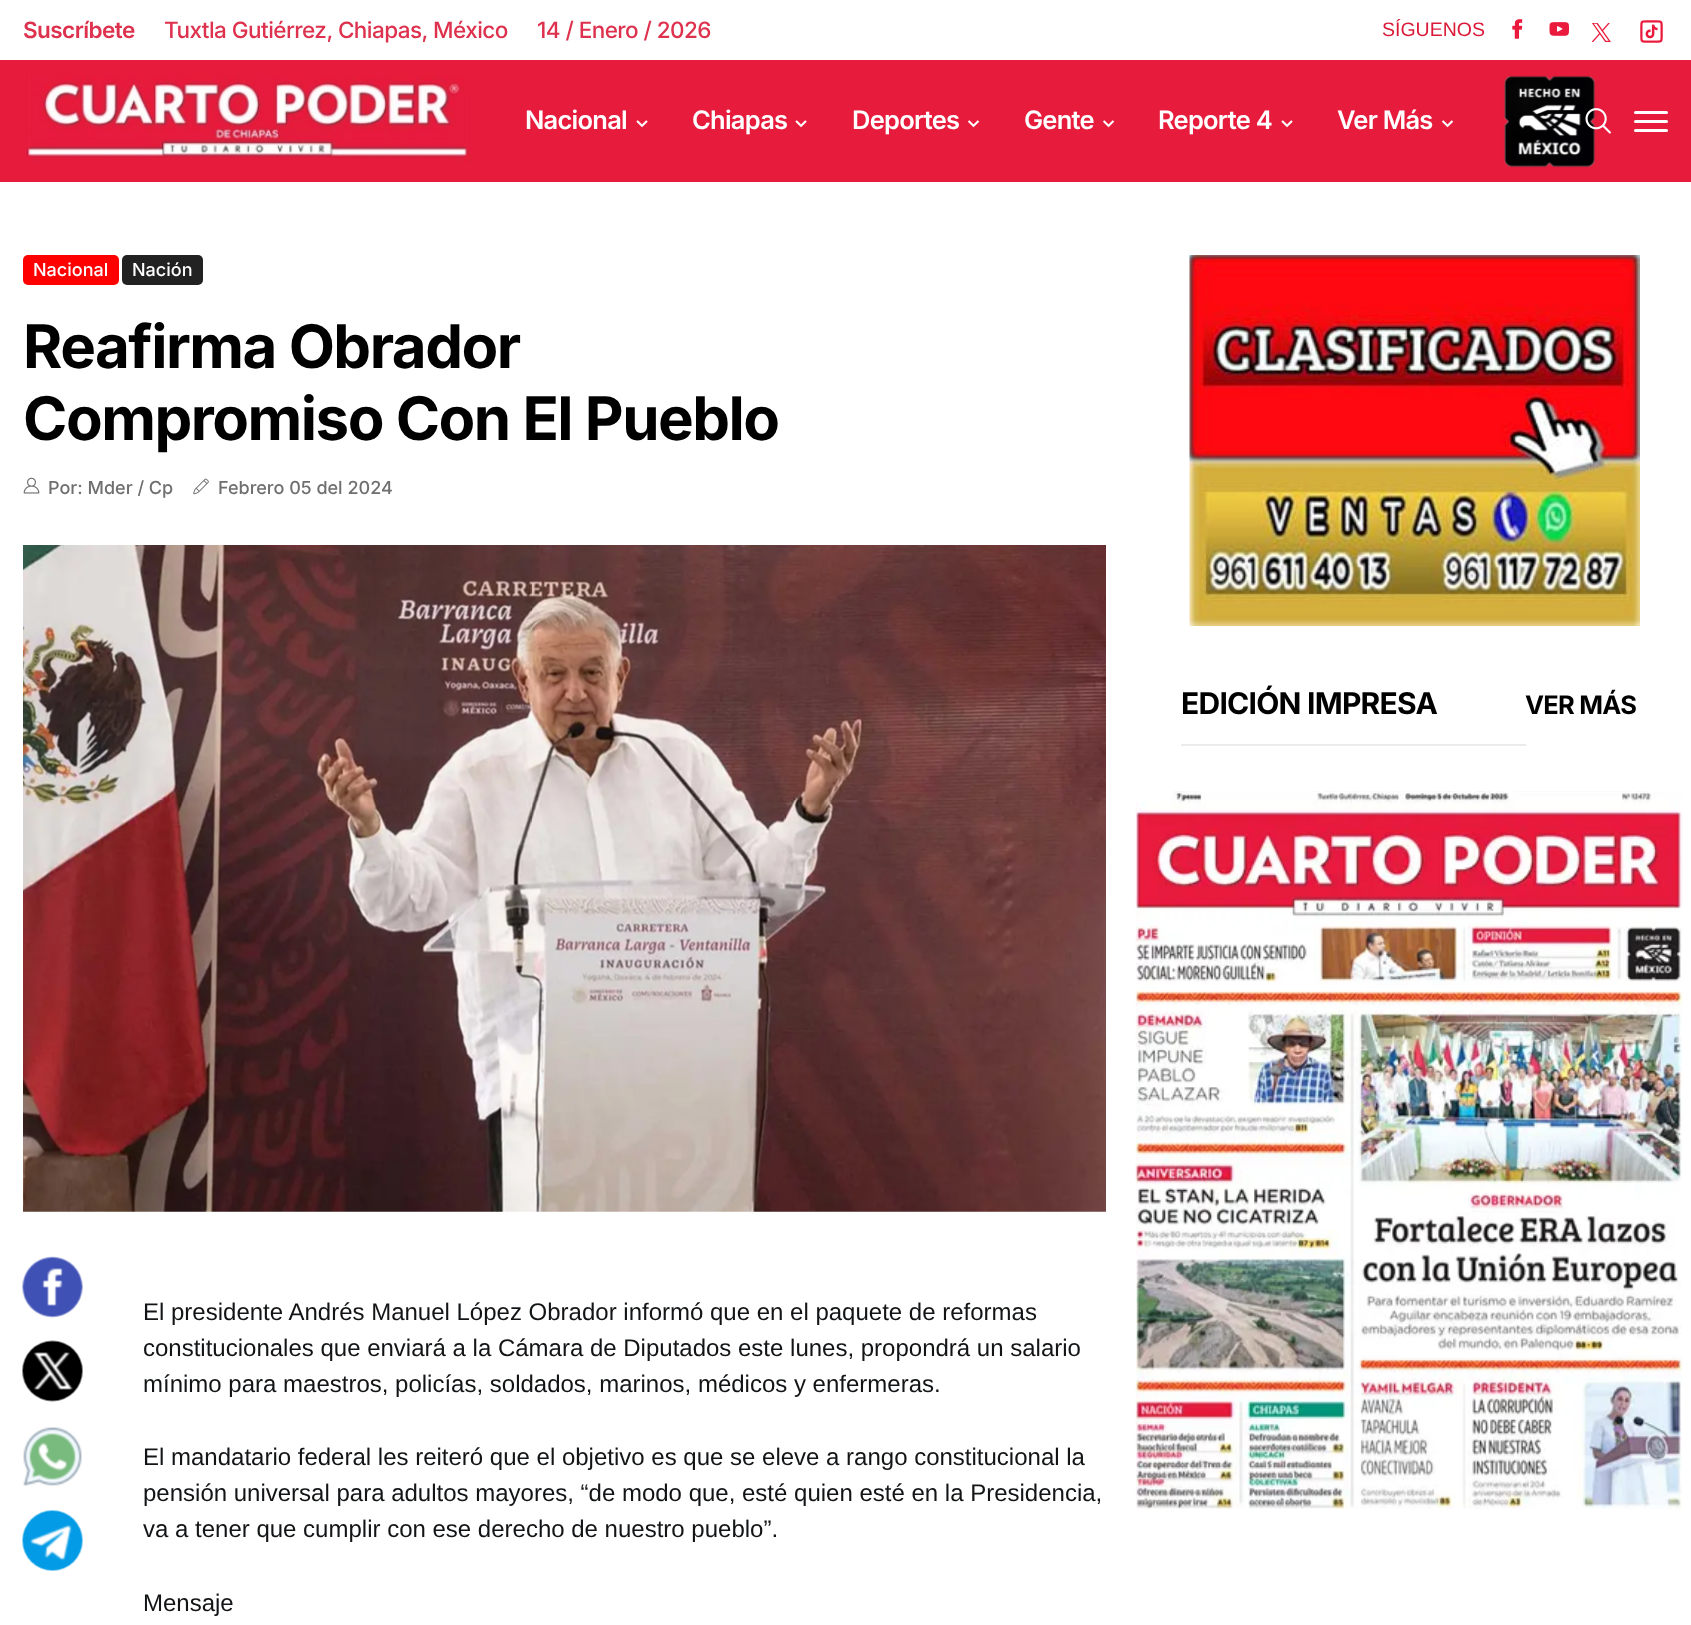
<svg xmlns="http://www.w3.org/2000/svg" width="1691" height="1625" viewBox="0 0 1691 1625">
  <style>
    .t1 { font: 600 22.5px Inter; letter-spacing: -0.55px; fill: #dd314d; }
    .t2 { font: 500 22.5px Inter; letter-spacing: -0.55px; fill: #dd314d; }
    .t3 { font: 19.5px Arimo; fill: #db1a39; }
    .t4 { font: 600 25.5px Inter; letter-spacing: -0.75px; fill: #fff; }
    .t5 { font: 500 18px Inter; fill: #fff; }
    .t6 { font: bold 60px Inter; letter-spacing: -1.5px; fill: #000; }
    .t7 { font: 500 18px Inter; fill: #6f6f6f; }
    .t8 { font: 24px Arimo; fill: #121416; }
    .t9 { font: bold 30px Inter; letter-spacing: -0.75px; fill: #000; }
    .t10 { font: bold 25.5px Inter; letter-spacing: -0.75px; fill: #000; }
  </style>
  <rect width="100%" height="100%" fill="#fff"/>
  <text x="23" y="38" class="t1">Suscríbete</text>
  <text x="164" y="38" class="t2">Tuxtla Gutiérrez, Chiapas, México</text>
  <text x="537" y="38" class="t2">14 / Enero / 2026</text>
  <text x="1382" y="36" class="t3">SÍGUENOS</text>
  <image x="1512" y="19" width="11" height="20" href="images/1.png"/>
  <image x="1549" y="22" width="20" height="14" href="images/2.png"/>
  <image x="1592" y="23" width="19" height="19" href="images/3.png"/>
  <image x="1640" y="20" width="23" height="23" href="images/4.png"/>
  <rect x="0" y="60" width="1691" height="122" fill="#e71b3c"/>
  <image x="25" y="76" width="447" height="87" href="images/5.png"/>
  <text x="525" y="129" class="t4">Nacional</text>
  <image x="636" y="120" width="12" height="8" href="images/6.png"/>
  <text x="692" y="129" class="t4">Chiapas</text>
  <image x="795" y="120" width="12" height="8" href="images/6.png"/>
  <text x="852" y="129" class="t4">Deportes</text>
  <image x="967" y="120" width="13" height="8" href="images/7.png"/>
  <text x="1024" y="129" class="t4">Gente</text>
  <image x="1102" y="120" width="13" height="8" href="images/7.png"/>
  <text x="1158" y="129" class="t4">Reporte 4</text>
  <image x="1281" y="120" width="12" height="8" href="images/6.png"/>
  <text x="1337" y="129" class="t4">Ver Más</text>
  <image x="1441" y="120" width="13" height="8" href="images/7.png"/>
  <image x="1503" y="75" width="93" height="93" href="images/8.png"/>
  <image x="1585" y="108" width="26" height="26" href="images/9.png"/>
  <rect x="1634" y="111" width="34" height="3" rx="1.5" fill="#fff"/>
  <rect x="1634" y="120" width="34" height="3" rx="1.5" fill="#fff"/>
  <rect x="1634" y="129" width="34" height="3" rx="1.5" fill="#fff"/>
  <rect x="23" y="255" width="96" height="30" rx="5" fill="#f00"/>
  <text x="33" y="276" class="t5">Nacional</text>
  <rect x="122" y="255" width="81" height="30" rx="5" fill="#222"/>
  <text x="132" y="276" class="t5">Nación</text>
  <text x="23" y="368" class="t6">Reafirma Obrador</text>
  <text x="23" y="440" class="t6">Compromiso Con El Pueblo</text>
  <image x="23" y="477" width="17" height="17" href="images/10.png"/>
  <text x="48" y="494" class="t7">Por: Mder / Cp</text>
  <image x="193" y="478" width="16" height="17" href="images/11.png"/>
  <text x="218" y="494" class="t7">Febrero 05 del 2024</text>
  <image x="23" y="545" width="1083" height="667" href="images/12.png"/>
  <image x="22" y="1256" width="61" height="62" href="images/13.png"/>
  <image x="22" y="1340" width="61" height="62" href="images/14.png"/>
  <image x="23" y="1427" width="59" height="59" href="images/15.png"/>
  <image x="22" y="1510" width="61" height="61" href="images/16.png"/>
  <text x="143" y="1320" class="t8">El presidente Andrés Manuel López Obrador informó que en el paquete de reformas</text>
  <text x="143" y="1356" class="t8">constitucionales que enviará a la Cámara de Diputados este lunes, propondrá un salario</text>
  <text x="143" y="1392" class="t8">mínimo para maestros, policías, soldados, marinos, médicos y enfermeras.</text>
  <text x="143" y="1465" class="t8">El mandatario federal les reiteró que el objetivo es que se eleve a rango constitucional la</text>
  <text x="143" y="1501" class="t8">pensión universal para adultos mayores, “de modo que, esté quien esté en la Presidencia,</text>
  <text x="143" y="1537" class="t8">va a tener que cumplir con ese derecho de nuestro pueblo”.</text>
  <text x="143" y="1611" class="t8">Mensaje</text>
  <image x="1189" y="255" width="451" height="371" href="images/17.png"/>
  <rect x="1181" y="744" width="345" height="2" fill="#ebebeb"/>
  <text x="1181" y="714" class="t9">EDICIÓN IMPRESA</text>
  <text x="1525" y="714" class="t10">VER MÁS</text>
  <image x="1135" y="791" width="548" height="718" href="images/18.png"/>
</svg>
